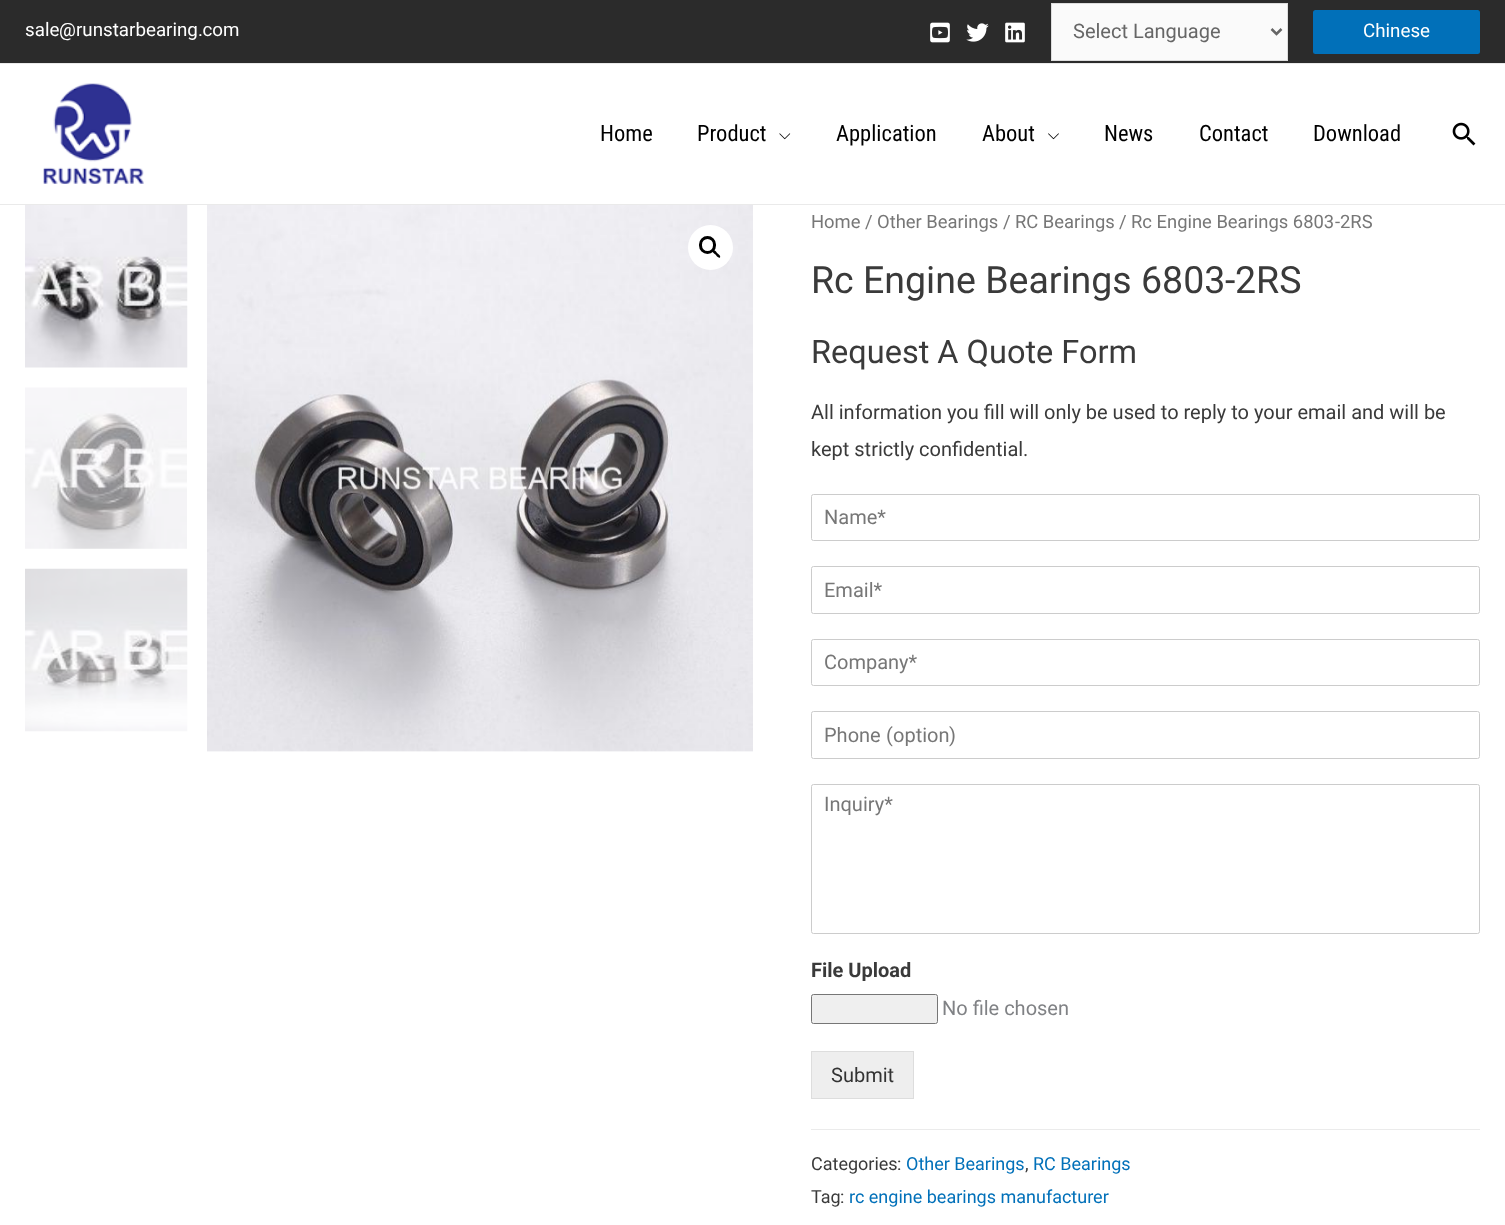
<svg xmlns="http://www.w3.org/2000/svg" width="1505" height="1225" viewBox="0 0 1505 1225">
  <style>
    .t1 { font: 18.75px Roboto; fill: #fff; }
    .t2 { font: 18.75px 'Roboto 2'; fill: #fff; }
    .t3 { font: 20px Roboto; fill: #666; }
    .t4 { font: 22.5px Roboto Condensed; fill: #000; }
    .t5 { font: 18.4px Roboto; fill: #777; }
    .t6 { font: 18.4px 'Roboto 2'; fill: #777; }
    .t7 { font: 37.5px Roboto; fill: #3a3a3a; }
    .t8 { font: 37.5px 'Roboto 2'; fill: #3a3a3a; }
    .t9 { font: 32.5px Roboto; fill: #3a3a3a; }
    .t10 { font: 20px Roboto; fill: #3a3a3a; }
    .t11 { font: 20px 'Roboto 2'; fill: #3a3a3a; }
    .t12 { font: 20px Roboto; fill: #777; }
    .t13 { font: 20px 'Roboto 2'; fill: #777; }
    .t14 { font: bold 20px Roboto; fill: #3a3a3a; }
    .t15 { font: 20px Roboto; fill: #808285; }
    .t16 { font: 20px Roboto; fill: #333; }
    .t17 { font: 18px Roboto; fill: #3a3a3a; }
    .t18 { font: 18px 'Roboto 2'; fill: #3a3a3a; }
    .t19 { font: 18px Roboto; fill: #0170b9; }
  </style>
  <rect width="100%" height="100%" fill="#fff"/>
  <rect x="0" y="0" width="1505" height="63" fill="#2b2b2b"/>
  <rect x="0" y="63" width="1505" height="1" fill="#eaeaea"/>
  <text x="25" y="36" class="t1">sale</text>
  <text x="59" y="36" class="t2">@</text>
  <text x="76" y="36" class="t1">runstarbearing com</text>
  <text x="198" y="36" class="t2">.</text>
  <image x="930" y="22" width="20" height="21" href="images/1.png"/>
  <image x="966" y="23" width="23" height="19" href="images/2.png"/>
  <image x="1005" y="22" width="20" height="21" href="images/3.png"/>
  <rect x="1051.5" y="3.5" width="236" height="57" fill="#fafafa" stroke="#ddd"/>
  <path d="M1271.5 29L1276.5 34L1281.5 29" fill="none" stroke="#666" stroke-width="2.5"/>
  <text x="1073" y="38" class="t3">Select Language</text>
  <rect x="1313" y="10" width="167" height="44" rx="2.5" fill="#0170b9"/>
  <text x="1363" y="37" class="t1">Chinese</text>
  <rect x="0" y="204" width="1505" height="1" fill="#eaeaea"/>
  <image x="43" y="83" width="101" height="101" href="images/4.png"/>
  <text x="600" y="141" class="t4">Home</text>
  <text x="697" y="141" class="t4">Product</text>
  <image x="779" y="133" width="12" height="7" href="images/5.png"/>
  <text x="836" y="141" class="t4">Application</text>
  <text x="982" y="141" class="t4">About</text>
  <image x="1048" y="133" width="11" height="7" href="images/6.png"/>
  <text x="1104" y="141" class="t4">News</text>
  <text x="1199" y="141" class="t4">Contact</text>
  <text x="1313" y="141" class="t4">Download</text>
  <image x="1452" y="122" width="24" height="24" href="images/7.png"/>
  <image x="25" y="205" width="163" height="163" href="images/8.png"/>
  <image x="25" y="387" width="162" height="162" href="images/9.png"/>
  <image x="25" y="568" width="163" height="164" href="images/10.png"/>
  <image x="207" y="205" width="546" height="547" href="images/11.png"/>
  <circle cx="710.5" cy="247.5" r="22.5" fill="#fff"/>
  <rect x="700.5" y="237.5" width="14" height="15" rx="7" fill="none" stroke="#000" stroke-width="3"/>
  <path d="M712.5 250C714 249 716.5 252 717 253C718 253.5 721 256 720 257.5C718.5 258.5 716 255.5 715.5 254.5C714.5 254 711.5 251.5 712.5 250Z" fill="#000"/>
  <text x="811" y="228" class="t5">Home</text>
  <text x="865" y="228" class="t6">/</text>
  <text x="877" y="228" class="t5">Other Bearings</text>
  <text x="1003" y="228" class="t6">/</text>
  <text x="1015" y="228" class="t5">RC Bearings</text>
  <text x="1119" y="228" class="t6">/</text>
  <text x="1131" y="228" class="t5">Rc Engine Bearings 6803</text>
  <text x="1335" y="228" class="t6">-</text>
  <text x="1340" y="228" class="t5">2RS</text>
  <text x="811" y="293" class="t7">Rc Engine Bearings 6803</text>
  <text x="1225" y="293" class="t8">-</text>
  <text x="1235" y="293" class="t7">2RS</text>
  <text x="811" y="363" class="t9">Request A Quote Form</text>
  <text x="811" y="419" class="t10">All information you fill will only be used to reply to your email and will be</text>
  <text x="811" y="456" class="t10">kept strictly confidential</text>
  <text x="1023" y="456" class="t11">.</text>
  <rect x="811.5" y="494.5" width="668" height="46" rx="2" fill="none" stroke="#ccc"/>
  <text x="824" y="524" class="t12">Name*</text>
  <rect x="811.5" y="566.5" width="668" height="47" rx="2" fill="none" stroke="#ccc"/>
  <text x="824" y="597" class="t12">Email*</text>
  <rect x="811.5" y="639.5" width="668" height="46" rx="2" fill="none" stroke="#ccc"/>
  <text x="824" y="669" class="t12">Company*</text>
  <rect x="811.5" y="711.5" width="668" height="47" rx="2" fill="none" stroke="#ccc"/>
  <text x="824" y="742" class="t12">Phone</text>
  <text x="886" y="742" class="t13">(</text>
  <text x="893" y="742" class="t12">option</text>
  <text x="949" y="742" class="t13">)</text>
  <rect x="811.5" y="784.5" width="668" height="149" rx="2" fill="none" stroke="#ccc"/>
  <text x="824" y="811" class="t12">Inquiry*</text>
  <text x="811" y="977" class="t14">File Upload</text>
  <rect x="811.5" y="994.5" width="126" height="29" rx="2" fill="#efefef" stroke="#767676"/>
  <text x="942" y="1015" class="t15">No file chosen</text>
  <rect x="811.5" y="1051.5" width="102" height="47" fill="#eee" stroke="#ddd"/>
  <text x="831" y="1082" class="t16">Submit</text>
  <rect x="811" y="1129" width="669" height="1" fill="#ebebeb"/>
  <text x="811" y="1170" class="t17">Categories</text>
  <text x="897" y="1170" class="t18">:</text>
  <text x="906" y="1170" class="t19">Other Bearings</text>
  <text x="1025" y="1170" class="t18">,</text>
  <text x="1033" y="1170" class="t19">RC Bearings</text>
  <text x="811" y="1203" class="t17">Tag</text>
  <text x="840" y="1203" class="t18">:</text>
  <text x="849" y="1203" class="t19">rc engine bearings manufacturer</text>
</svg>
